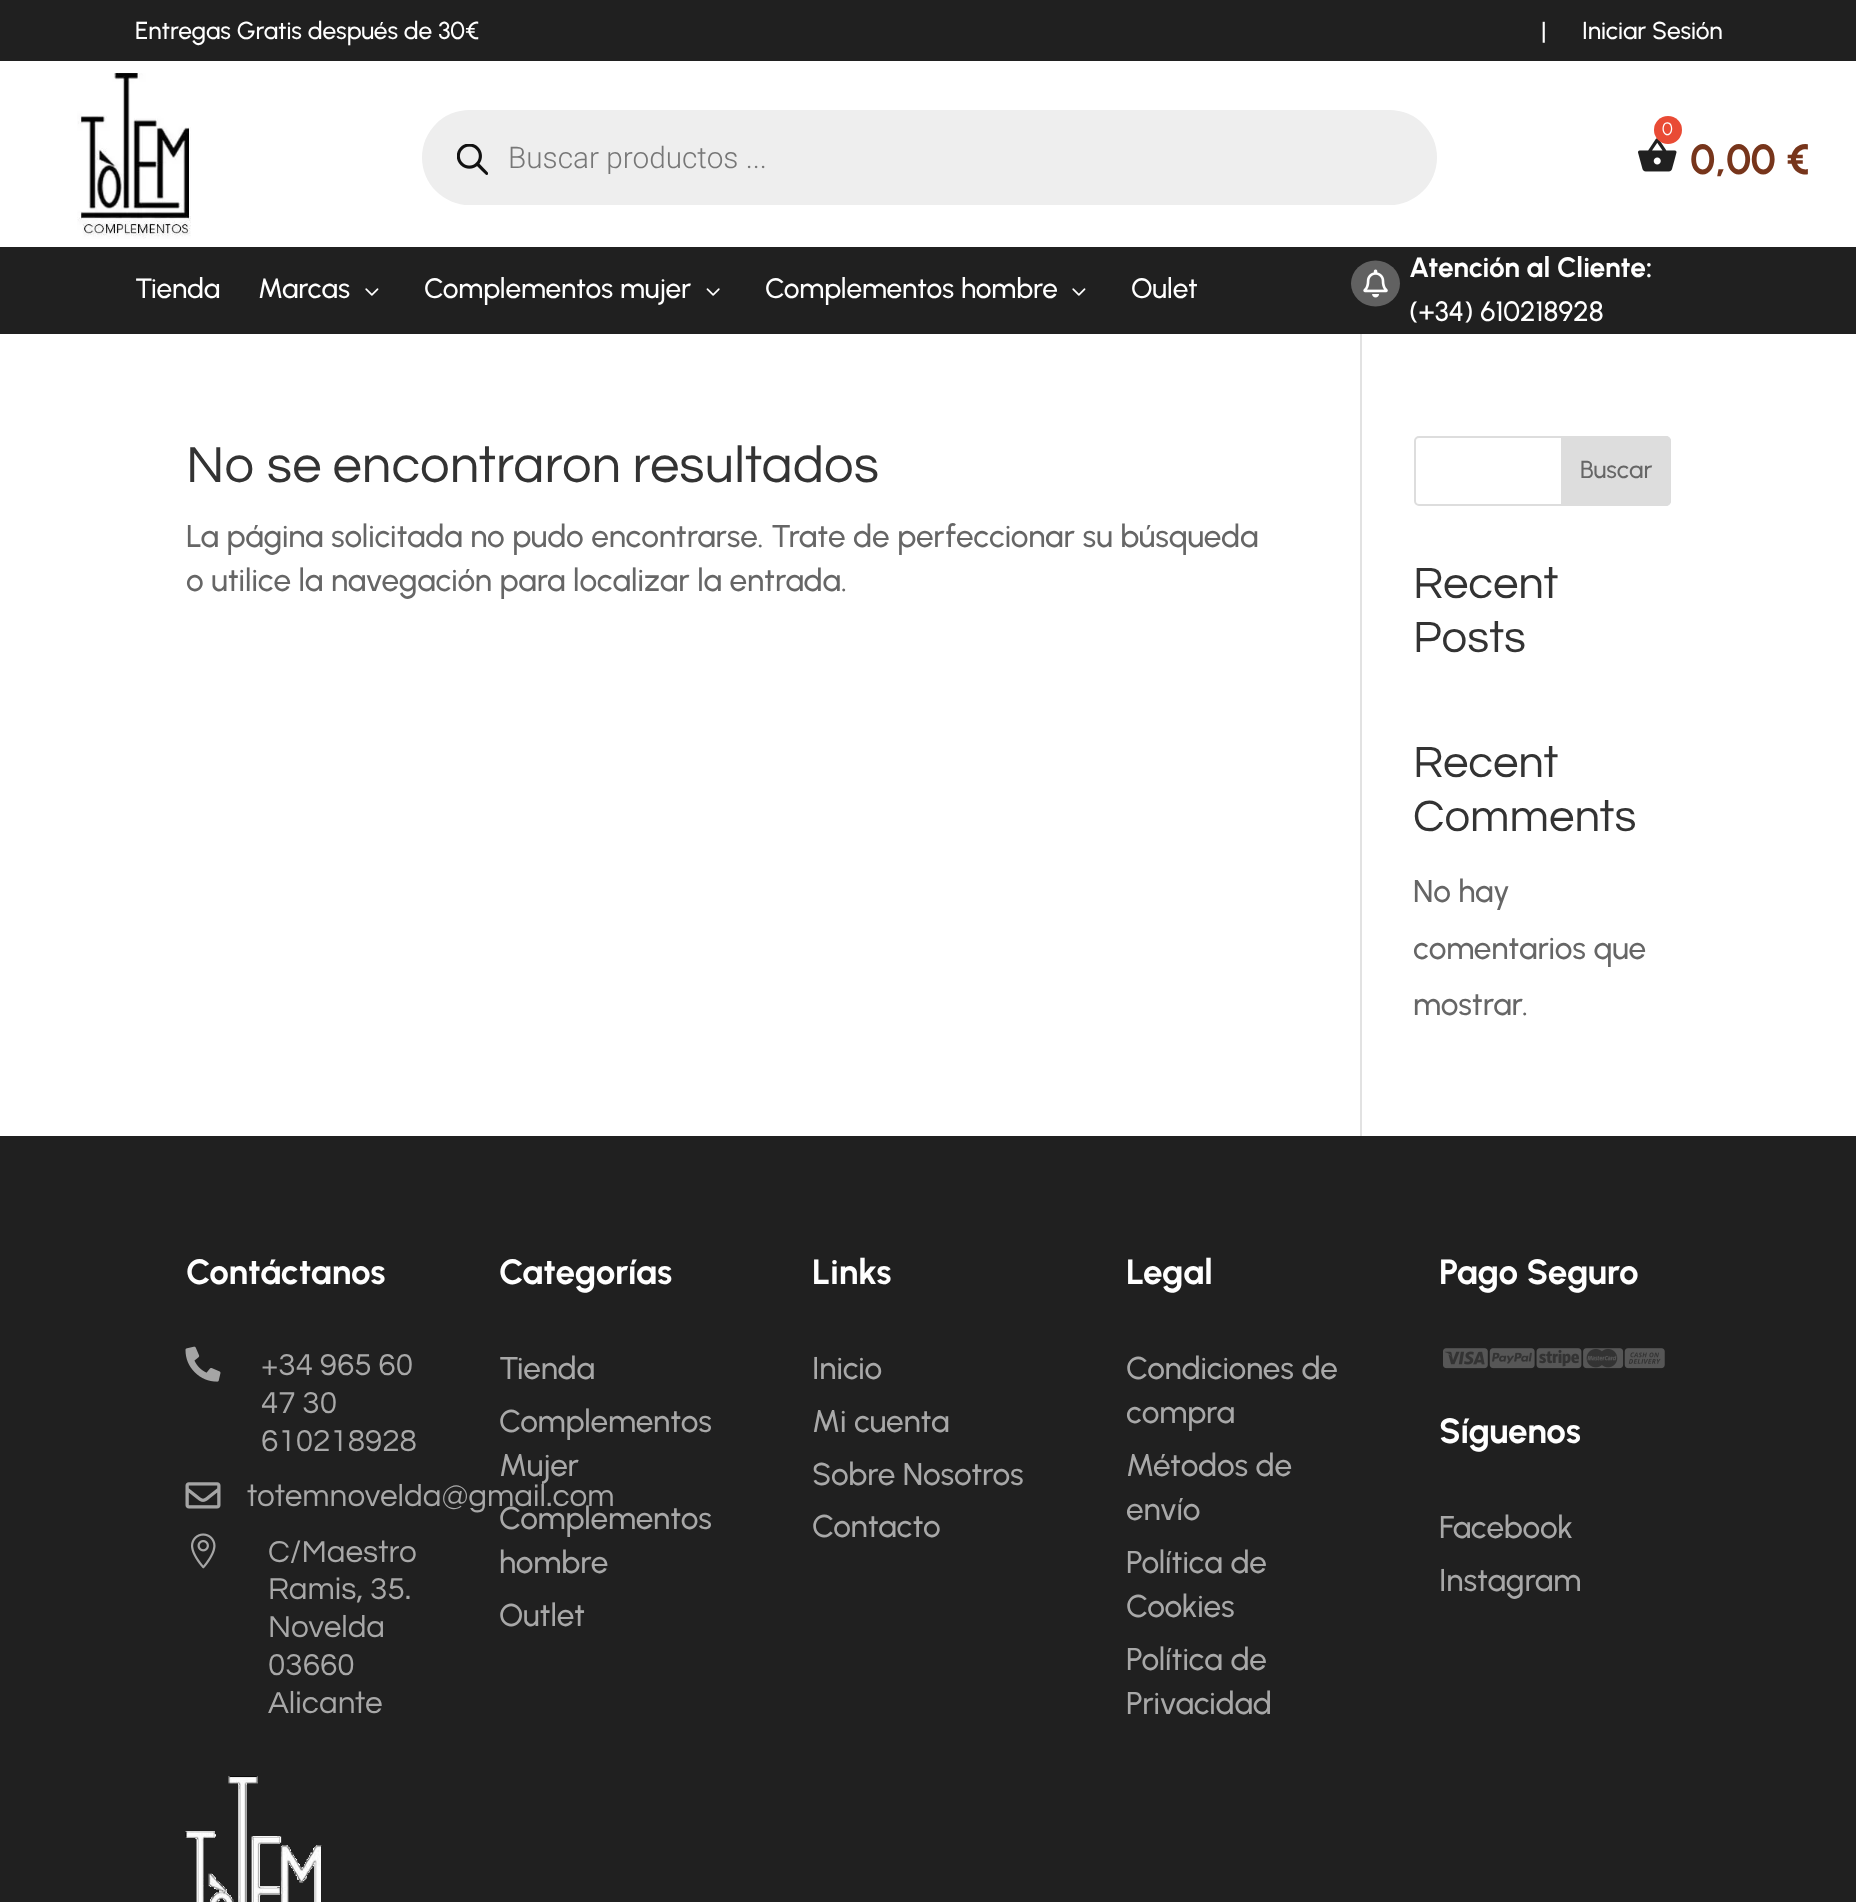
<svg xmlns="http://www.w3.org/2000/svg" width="1856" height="1902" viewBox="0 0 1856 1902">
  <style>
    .t1 { font: 500 24.5px Urbanist; fill: #fff; }
    .t2 { font: 300 29.75px Roboto; fill: #777; }
    .t3 { font: 18px Urbanist; fill: #fff; }
    .t4 { font: bold 42px Urbanist; fill: #77351b; }
    .t5 { font: 500 28px Urbanist; fill: #fff; }
    .t6 { font: bold 28px Urbanist; fill: #fff; }
    .t7 { font: 52.5px Questrial; fill: #333; }
    .t8 { font: 500 31.5px Urbanist; fill: #666; }
    .t9 { font: 500 24.5px Urbanist; fill: #666; }
    .t10 { font: 45.5px Questrial; fill: #333; }
    .t11 { font: bold 35px Urbanist; fill: #fff; }
    .t12 { font: 31.5px Questrial; fill: #a8a8a8; }
    .t13 { font: 500 31.5px Urbanist; fill: #a8a8a8; }
  </style>
  <rect width="100%" height="100%" fill="#fff"/>
  <rect x="0" y="0" width="1856" height="61" fill="#202020"/>
  <text x="135" y="39" class="t1">Entregas Gratis después de 30€</text>
  <text x="1541" y="39" class="t1">|</text>
  <text x="1582" y="39" class="t1">Iniciar Sesión</text>
  <image x="77" y="73" width="114" height="166" href="images/1.png"/>
  <rect x="422" y="110" width="1015" height="95" rx="47.5" fill="#eee"/>
  <image x="457" y="144" width="31" height="31" href="images/2.png"/>
  <text x="508" y="168" class="t2">Buscar productos ...</text>
  <image x="1638" y="138" width="39" height="34" href="images/3.png"/>
  <circle cx="1668" cy="130" r="14" fill="#e94b35"/>
  <text x="1662" y="135" class="t3">0</text>
  <text x="1690" y="174" class="t4">0,00 €</text>
  <rect x="0" y="247" width="1856" height="87" fill="#202020"/>
  <text x="135" y="298" class="t5">Tienda</text>
  <text x="258" y="298" class="t5">Marcas</text>
  <image x="365" y="288" width="14" height="8" href="images/4.png"/>
  <text x="424" y="298" class="t5">Complementos mujer</text>
  <image x="706" y="288" width="14" height="8" href="images/5.png"/>
  <text x="765" y="298" class="t5">Complementos hombre</text>
  <image x="1072" y="288" width="14" height="8" href="images/4.png"/>
  <text x="1131" y="298" class="t5">Oulet</text>
  <ellipse cx="1375.5" cy="283.5" rx="24.5" ry="23" fill="#616161"/>
  <image x="1363" y="269" width="25" height="29" href="images/6.png"/>
  <text x="1409" y="277" class="t6">Atención al Cliente:</text>
  <text x="1409" y="321" class="t5">(+34) 610218928</text>
  <rect x="1360" y="334" width="2" height="802" fill="#e2e2e2"/>
  <text x="186" y="482" class="t7">No se encontraron resultados</text>
  <text x="186" y="547" class="t8">La página solicitada no pudo encontrarse. Trate de perfeccionar su búsqueda</text>
  <text x="186" y="591" class="t8">o utilice la navegación para localizar la entrada.</text>
  <rect x="1415" y="437" width="255" height="68" rx="4" fill="none" stroke="#ddd" stroke-width="2"/>
  <path d="M1562 437H1666C1668 437 1670 439 1670 441V501C1670 503 1668 505 1666 505H1562Z" fill="#ddd" stroke="#ddd" stroke-width="2"/>
  <text x="1580" y="478" class="t9">Buscar</text>
  <text x="1413" y="598" class="t10">Recent</text>
  <text x="1413" y="652" class="t10">Posts</text>
  <text x="1413" y="777" class="t10">Recent</text>
  <text x="1413" y="831" class="t10">Comments</text>
  <text x="1413" y="902" class="t8">No hay</text>
  <text x="1413" y="959" class="t8">comentarios que</text>
  <text x="1413" y="1015" class="t8">mostrar.</text>
  <rect x="0" y="1136" width="1856" height="766" fill="#202020"/>
  <text x="186" y="1284" class="t11">Contáctanos</text>
  <image x="185" y="1346" width="36" height="36" href="images/7.png"/>
  <text x="261" y="1375" class="t12">+34 965 60</text>
  <text x="261" y="1413" class="t12">47 30</text>
  <text x="261" y="1451" class="t12">610218928</text>
  <image x="185" y="1482" width="36" height="27" href="images/8.png"/>
  <text x="247" y="1506" class="t12">totemnovelda@gmail.com</text>
  <image x="191" y="1533" width="25" height="36" href="images/9.png"/>
  <text x="268" y="1562" class="t12">C/Maestro</text>
  <text x="268" y="1599" class="t12">Ramis, 35.</text>
  <text x="268" y="1637" class="t12">Novelda</text>
  <text x="268" y="1675" class="t12">03660</text>
  <text x="268" y="1713" class="t12">Alicante</text>
  <image x="185" y="1776" width="137" height="126" href="images/10.png"/>
  <text x="812" y="1284" class="t11">Links</text>
  <text x="812" y="1379" class="t13">Inicio</text>
  <text x="812" y="1432" class="t13">Mi cuenta</text>
  <text x="812" y="1485" class="t13">Sobre Nosotros</text>
  <text x="812" y="1537" class="t13">Contacto</text>
  <text x="1126" y="1284" class="t11">Legal</text>
  <text x="1126" y="1379" class="t13">Condiciones de</text>
  <text x="1126" y="1423" class="t13">compra</text>
  <text x="1126" y="1476" class="t13">Métodos de</text>
  <text x="1126" y="1520" class="t13">envío</text>
  <text x="1126" y="1573" class="t13">Política de</text>
  <text x="1126" y="1617" class="t13">Cookies</text>
  <text x="1126" y="1670" class="t13">Política de</text>
  <text x="1126" y="1714" class="t13">Privacidad</text>
  <text x="499" y="1284" class="t11">Categorías</text>
  <text x="499" y="1379" class="t13">Tienda</text>
  <text x="499" y="1432" class="t13">Complementos</text>
  <text x="499" y="1476" class="t13">Mujer</text>
  <text x="499" y="1529" class="t13">Complementos</text>
  <text x="499" y="1573" class="t13">hombre</text>
  <text x="499" y="1626" class="t13">Outlet</text>
  <text x="1439" y="1284" class="t11">Pago Seguro</text>
  <image x="1443" y="1348" width="222" height="21" href="images/11.png"/>
  <text x="1439" y="1443" class="t11">Síguenos</text>
  <text x="1439" y="1538" class="t13">Facebook</text>
  <text x="1439" y="1591" class="t13">Instagram</text>
</svg>
